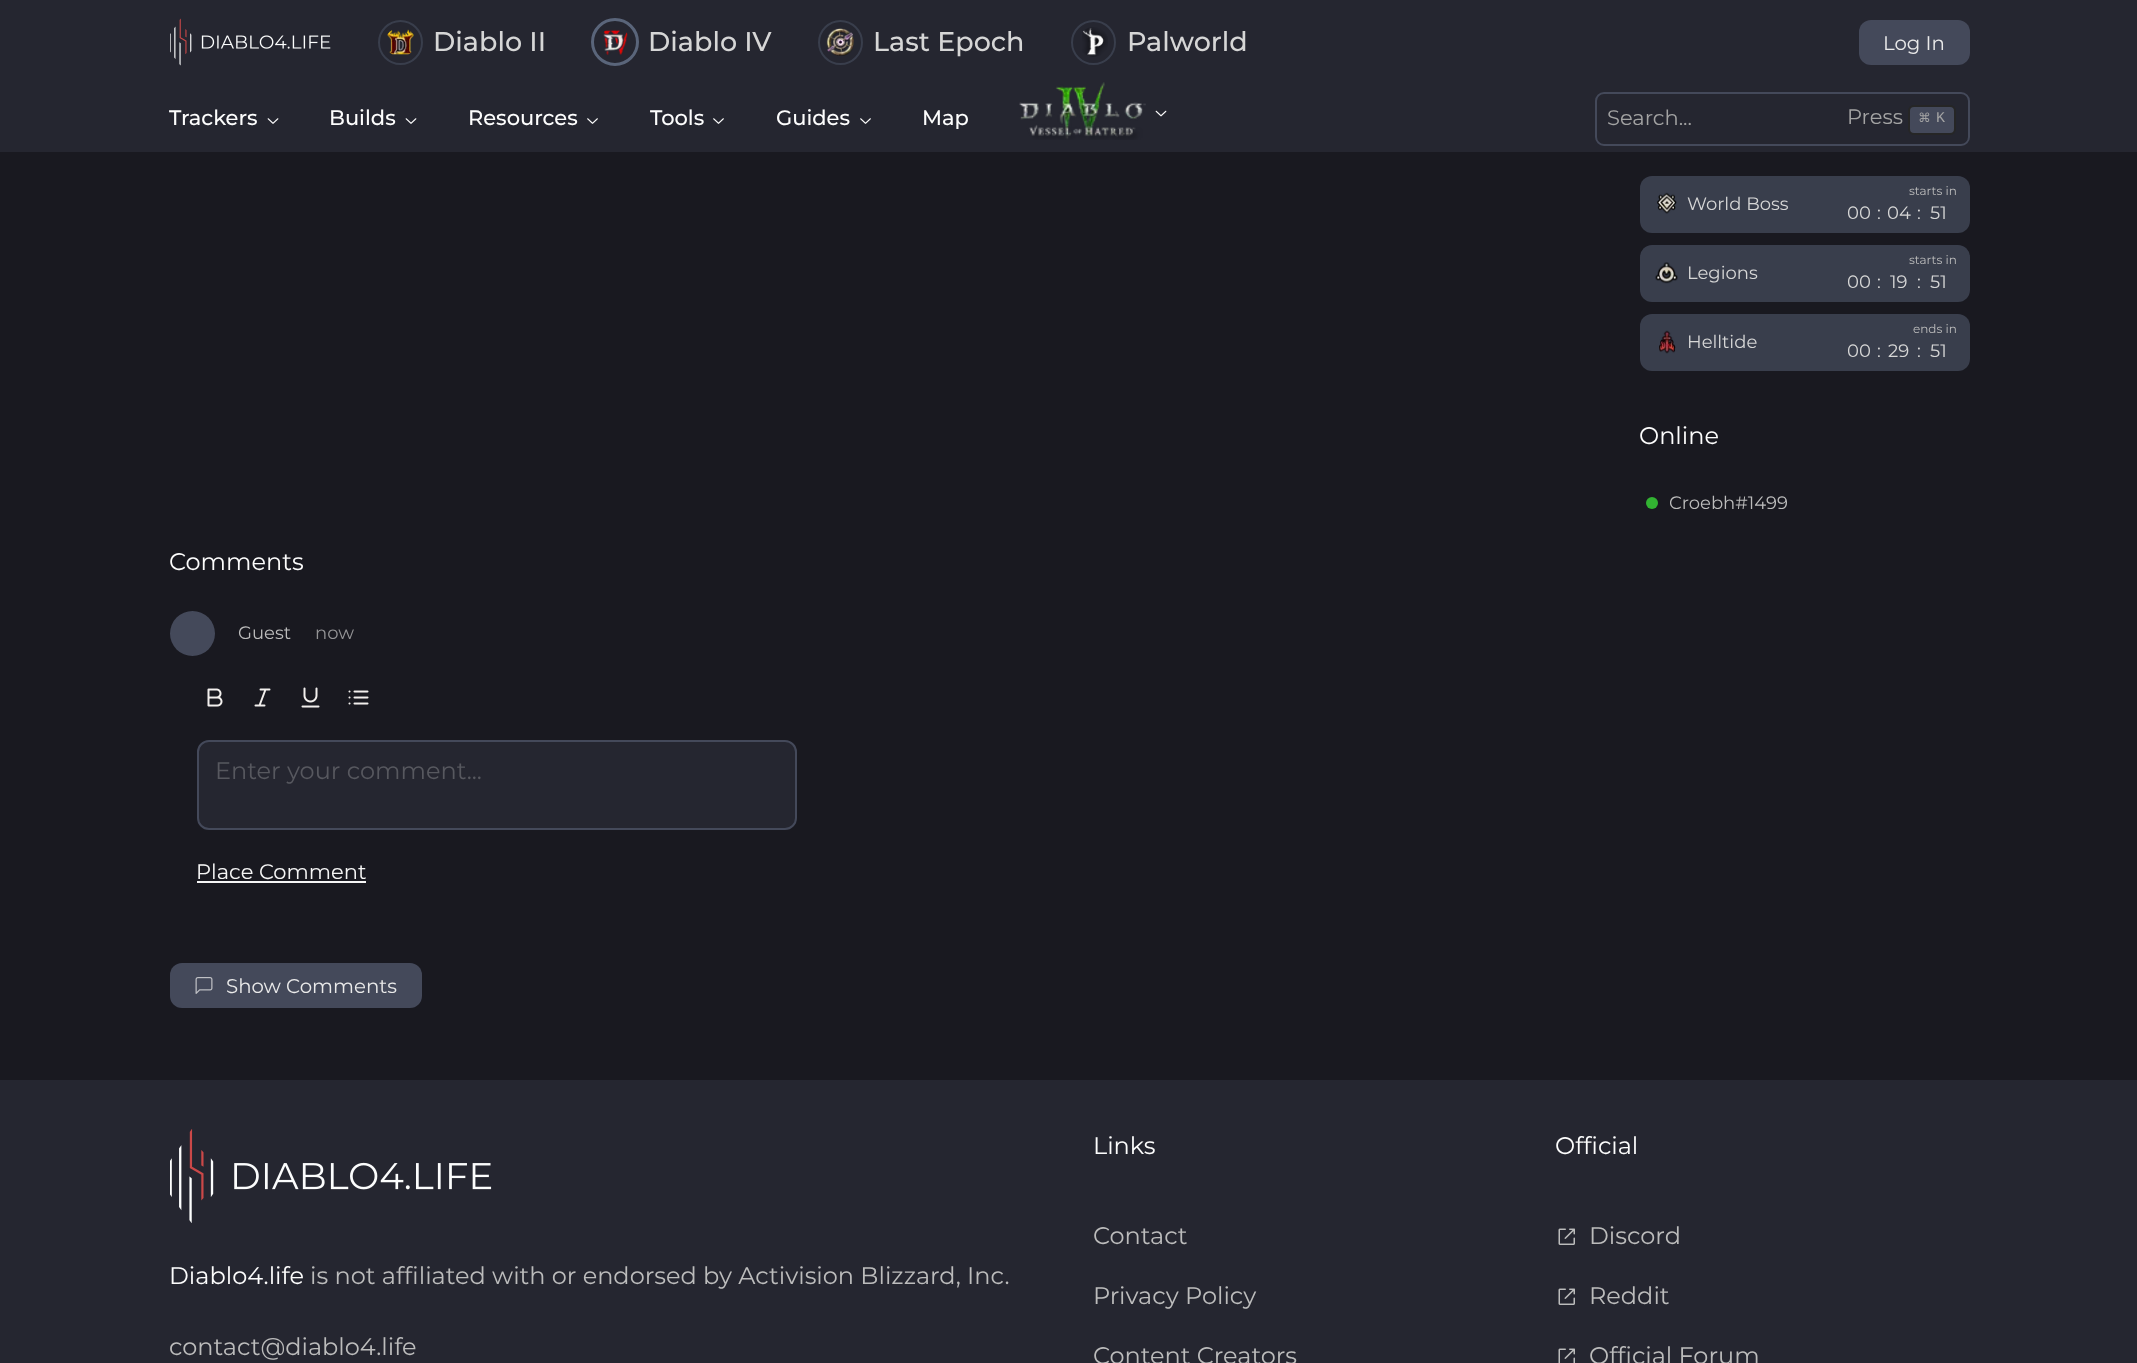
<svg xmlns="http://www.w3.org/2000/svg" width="2137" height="1363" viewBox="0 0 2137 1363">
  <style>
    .t1 { font: 500 27px Montserrat; fill: #d6d6d6; }
    .t2 { font: 19.75px Montserrat; fill: #eaeaea; }
    .t3 { font: 500 21px Montserrat; fill: #fdfdfd; }
    .t4 { font: 21px Montserrat; fill: #a3a3a3; }
    .t5 { font: 18px DejaVu Sans Mono; fill: #a3a3a3; }
    .t6 { font: 15px Liberation Mono; fill: #a3a3a3; }
    .t7 { font: 18px Montserrat; fill: #d6d6d6; }
    .t8 { font: 12px Montserrat; fill: #bcbcbc; }
    .t9 { font: 24px Montserrat; fill: #fdfdfd; }
    .t10 { font: 18px Montserrat; fill: #bcbcbc; }
    .t11 { font: 18px Montserrat; fill: #939395; }
    .t12 { font: 24px Montserrat; fill: #57585f; }
    .t13 { font: 21px Montserrat; fill: #f6f6f6; }
    .t14 { font: 24px Montserrat; fill: #bcbcbc; }
  </style>
  <defs>
    <clipPath id="clip1"><rect x="1670" y="489" width="252" height="27"/></clipPath>
  </defs>
  <rect width="100%" height="100%" fill="#191920"/>
  <rect x="0" y="0" width="2137" height="152" fill="#252630"/>
  <image x="170" y="18" width="161" height="48" href="images/1.png"/>
  <image x="387" y="29" width="27" height="26" href="images/2.png"/>
  <circle cx="400.5" cy="42.5" r="21.5" fill="none" stroke="#393e4c" stroke-width="2"/>
  <text x="433" y="51" class="t1">Diablo II</text>
  <image x="603" y="29" width="25" height="26" href="images/3.png"/>
  <circle cx="615" cy="42" r="22.5" fill="none" stroke="#5a657a" stroke-width="3"/>
  <text x="648" y="51" class="t1">Diablo IV</text>
  <image x="826" y="28" width="28" height="28" href="images/4.png"/>
  <circle cx="840.5" cy="42.5" r="21.5" fill="none" stroke="#393e4c" stroke-width="2"/>
  <text x="873" y="51" class="t1">Last Epoch</text>
  <image x="1082" y="27" width="26" height="30" href="images/5.png"/>
  <circle cx="1093.5" cy="42.5" r="21.5" fill="none" stroke="#393e4c" stroke-width="2"/>
  <text x="1127" y="51" class="t1">Palworld</text>
  <rect x="1859" y="20" width="111" height="45" rx="12" fill="#44495a"/>
  <text x="1883" y="50" class="t2">Log In</text>
  <text x="169" y="125" class="t3">Trackers</text>
  <image x="267" y="118" width="12" height="6" href="images/6.png"/>
  <text x="329" y="125" class="t3">Builds</text>
  <image x="405" y="118" width="12" height="6" href="images/6.png"/>
  <text x="468" y="125" class="t3">Resources</text>
  <image x="587" y="118" width="11" height="6" href="images/7.png"/>
  <text x="650" y="125" class="t3">Tools</text>
  <image x="713" y="118" width="11" height="6" href="images/7.png"/>
  <text x="776" y="125" class="t3">Guides</text>
  <image x="860" y="118" width="11" height="6" href="images/7.png"/>
  <text x="922" y="125" class="t3">Map</text>
  <image x="1019" y="82" width="127" height="58" href="images/8.png"/>
  <image x="1155" y="110" width="12" height="7" href="images/9.png"/>
  <rect x="1596" y="93" width="373" height="52" rx="8" fill="none" stroke="#44495a" stroke-width="2"/>
  <text x="1607" y="125" class="t4">Search...</text>
  <text x="1847" y="124" class="t4">Press</text>
  <rect x="1909" y="106" width="46" height="28" rx="5" fill="#44495a" stroke="#262626" stroke-width="2"/>
  <text x="1919" y="124" class="t5">⌘</text>
  <text x="1936" y="122" class="t6">K</text>
  <rect x="1640" y="176" width="330" height="57" rx="12" fill="#393e4c"/>
  <image x="1657" y="192" width="20" height="22" href="images/10.png"/>
  <text x="1687" y="210" class="t7">World Boss</text>
  <text x="1909" y="195" class="t8">starts in</text>
  <text x="1847" y="219" class="t7">00</text>
  <text x="1877" y="219" class="t7">:</text>
  <text x="1887" y="219" class="t7">04</text>
  <text x="1917" y="219" class="t7">:</text>
  <text x="1930" y="219" class="t7">51</text>
  <rect x="1640" y="245" width="330" height="57" rx="12" fill="#393e4c"/>
  <image x="1655" y="262" width="23" height="22" href="images/11.png"/>
  <text x="1687" y="279" class="t7">Legions</text>
  <text x="1909" y="264" class="t8">starts in</text>
  <text x="1847" y="288" class="t7">00</text>
  <text x="1877" y="288" class="t7">:</text>
  <text x="1890" y="288" class="t7">19</text>
  <text x="1917" y="288" class="t7">:</text>
  <text x="1930" y="288" class="t7">51</text>
  <rect x="1640" y="314" width="330" height="57" rx="12" fill="#393e4c"/>
  <image x="1659" y="330" width="17" height="24" href="images/12.png"/>
  <text x="1687" y="348" class="t7">Helltide</text>
  <text x="1913" y="333" class="t8">ends in</text>
  <text x="1847" y="357" class="t7">00</text>
  <text x="1877" y="357" class="t7">:</text>
  <text x="1888" y="357" class="t7">29</text>
  <text x="1917" y="357" class="t7">:</text>
  <text x="1930" y="357" class="t7">51</text>
  <text x="1639" y="444" class="t9">Online</text>
  <circle cx="1652" cy="503" r="6" fill="#32b332"/>
  <g clip-path="url(#clip1)">
    <text x="1669" y="509" class="t10">Croebh#1499</text>
  </g>
  <text x="169" y="570" class="t9">Comments</text>
  <circle cx="192.5" cy="633.5" r="22.5" fill="#44495a"/>
  <text x="238" y="639" class="t10">Guest</text>
  <text x="315" y="639" class="t11">now</text>
  <image x="207" y="688" width="16" height="19" href="images/13.png"/>
  <path d="M269.5 689.5H260.5M264.5 705.5H255.5M265.5 689.5L259.5 705.5" fill="none" stroke="#f2efed" stroke-width="2" stroke-linecap="round" stroke-linejoin="round"/>
  <image x="301" y="687" width="19" height="21" href="images/14.png"/>
  <image x="348" y="690" width="21" height="15" href="images/15.png"/>
  <rect x="198" y="741" width="598" height="88" rx="11" fill="#252630" stroke="#44495a" stroke-width="2"/>
  <text x="215" y="779" class="t12">Enter your comment...</text>
  <text x="196" y="879" class="t13">Place Comment</text>
  <rect x="197" y="881" width="169" height="2" fill="#f6f6f6"/>
  <rect x="170" y="963" width="252" height="45" rx="12" fill="#44495a"/>
  <image x="195" y="977" width="18" height="17" href="images/16.png"/>
  <text x="226" y="993" class="t2">Show Comments</text>
  <rect x="0" y="1080" width="2137" height="283" fill="#252630"/>
  <image x="170" y="1129" width="322" height="94" href="images/17.png"/>
  <text x="169" y="1284" class="t9">Diablo4.life</text>
  <text x="310" y="1284" class="t14">is not affiliated with or endorsed by Activision Blizzard, Inc.</text>
  <text x="169" y="1355" class="t14">contact@diablo4.life</text>
  <text x="1093" y="1154" class="t9">Links</text>
  <text x="1093" y="1244" class="t14">Contact</text>
  <text x="1093" y="1304" class="t14">Privacy Policy</text>
  <text x="1093" y="1364" class="t14">Content Creators</text>
  <text x="1555" y="1154" class="t9">Official</text>
  <image x="1558" y="1228" width="17" height="17" href="images/18.png"/>
  <text x="1589" y="1244" class="t14">Discord</text>
  <image x="1558" y="1288" width="17" height="17" href="images/18.png"/>
  <text x="1589" y="1304" class="t14">Reddit</text>
  <image x="1558" y="1348" width="17" height="15" href="images/19.png"/>
  <text x="1589" y="1364" class="t14">Official Forum</text>
</svg>
